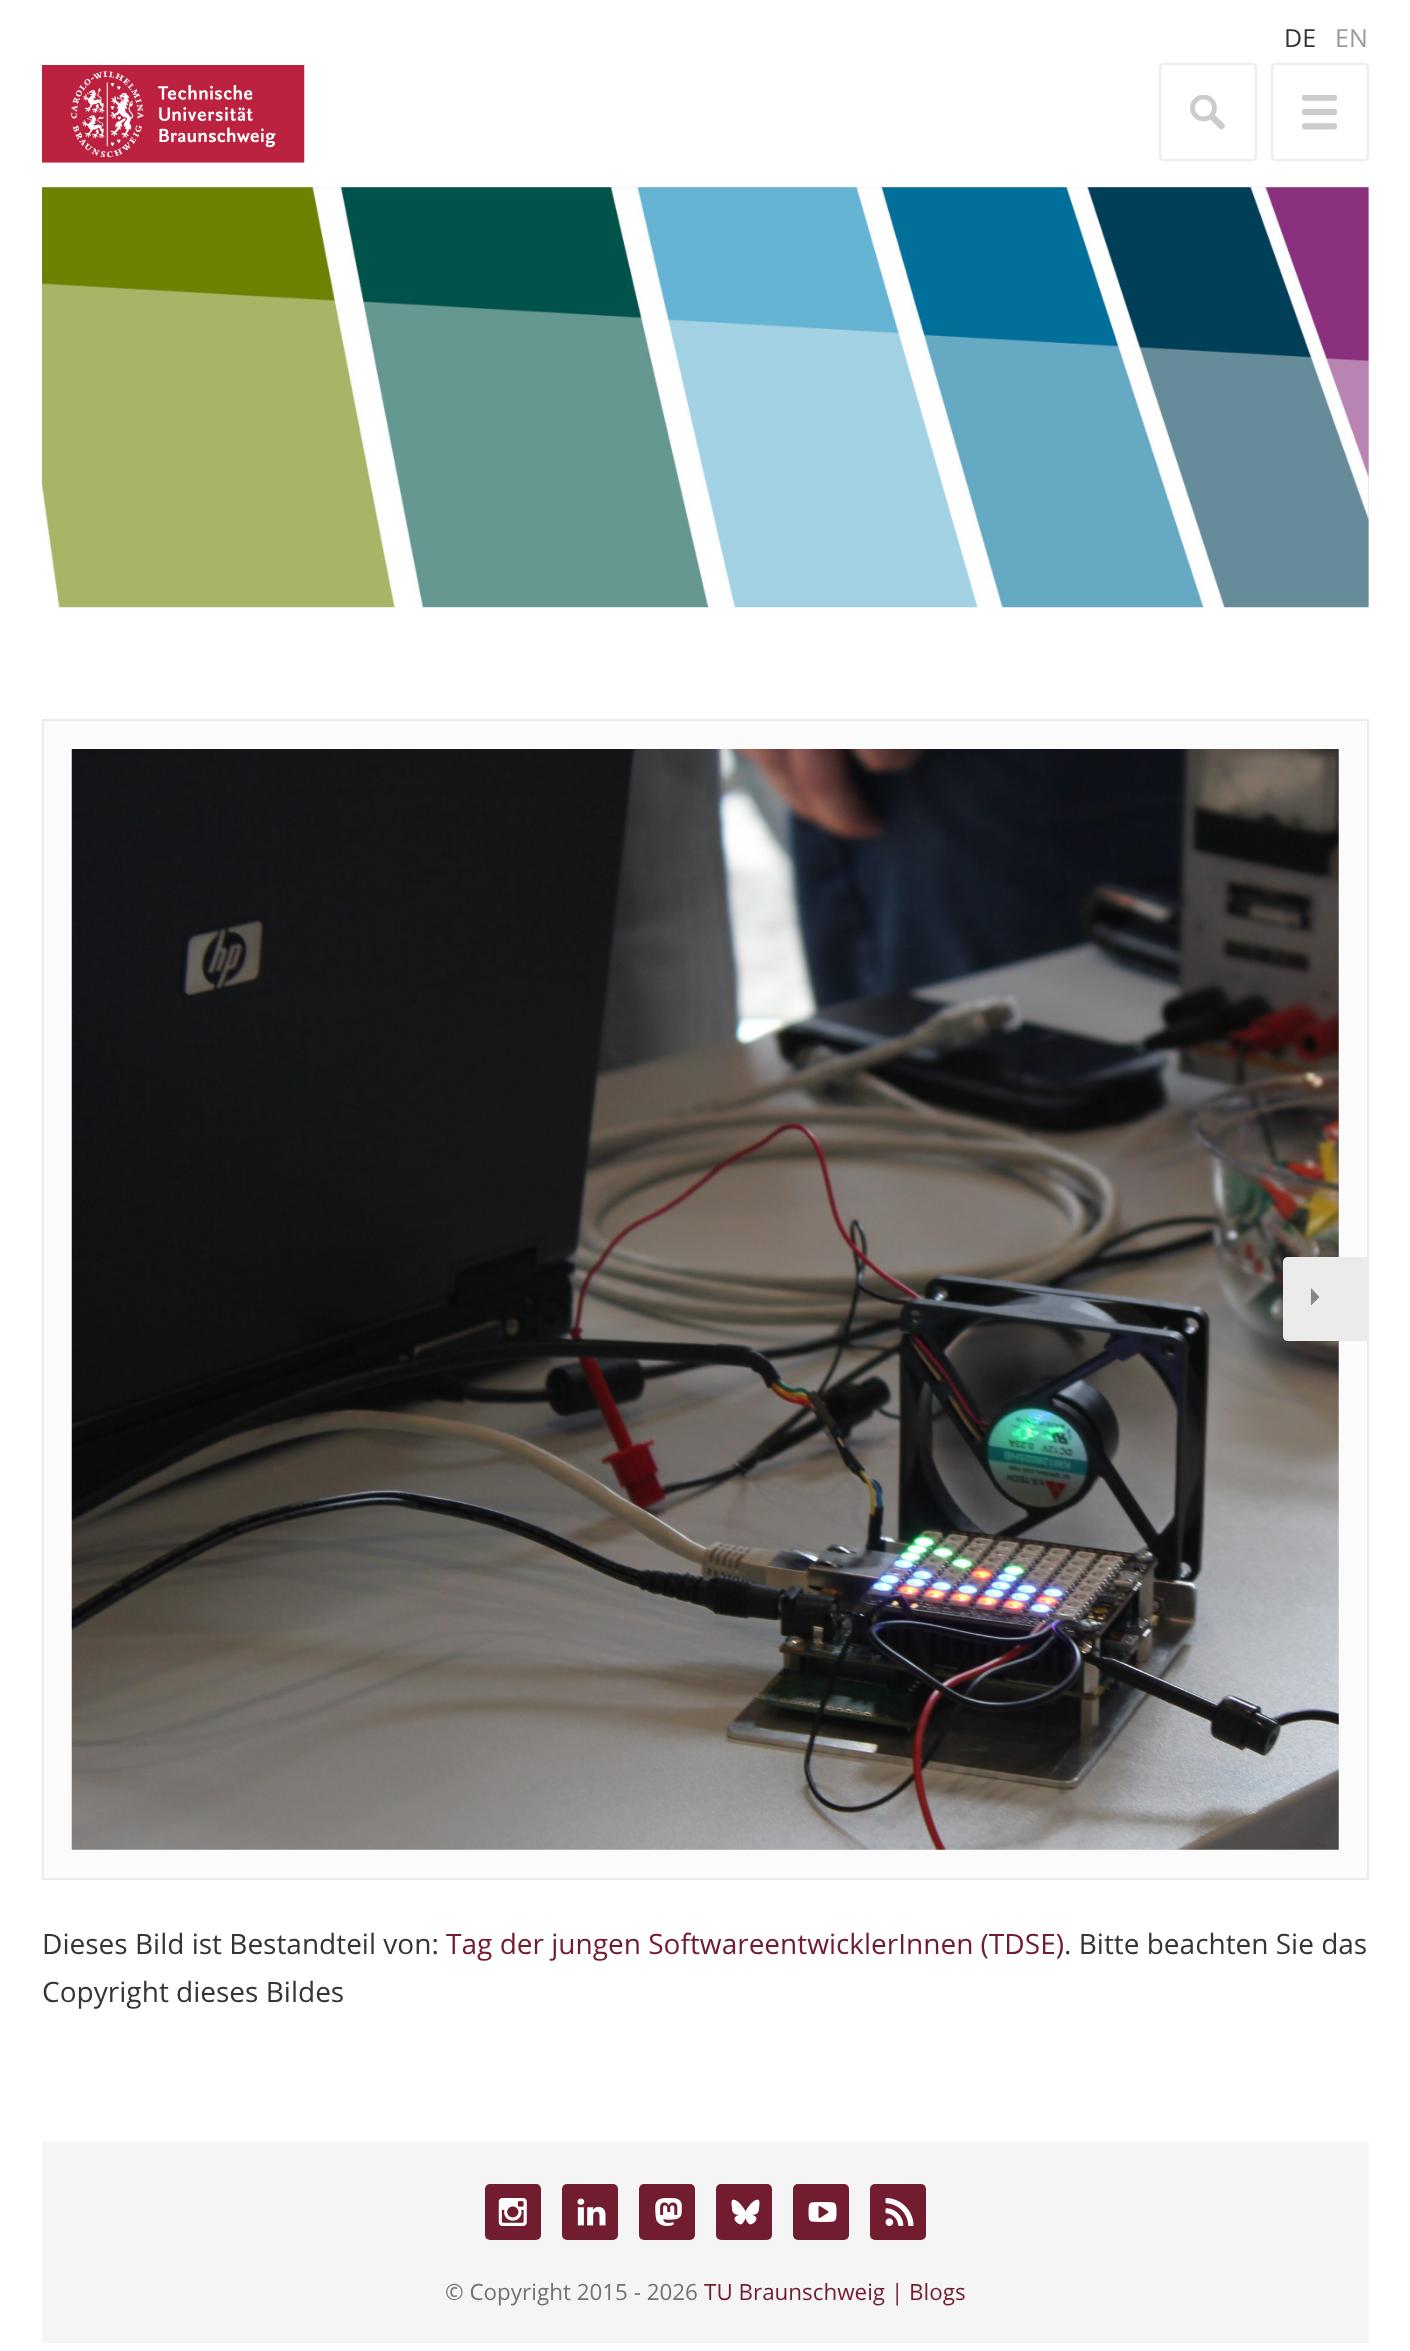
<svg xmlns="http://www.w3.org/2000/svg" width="1410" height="2351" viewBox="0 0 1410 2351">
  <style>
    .t1 { font: 25px Open Sans; fill: #323539; }
    .t2 { font: 25px Open Sans; fill: #999a9c; }
    .t3 { font: 28px Open Sans; fill: #323539; }
    .t4 { font: 28px Open Sans; fill: #711c2f; }
    .t5 { font: 22.4px Open Sans; fill: #707274; }
    .t6 { font: 22.4px Open Sans; fill: #711c2f; }
  </style>
  <rect width="100%" height="100%" fill="#fff"/>
  <text x="1284" y="47" class="t1">DE</text>
  <text x="1335" y="47" class="t2">EN</text>
  <image x="42" y="65" width="263" height="98" href="images/1.png"/>
  <rect x="42" y="187" width="1327" height="420" fill="#d6d7d7"/>
  <image x="42" y="187" width="1327" height="421" href="images/2.png"/>
  <image x="1190" y="95" width="35" height="35" href="images/3.png"/>
  <rect x="1160" y="64" width="96" height="96" rx="4" fill="none" stroke="#ebebeb" stroke-width="2"/>
  <image x="1302" y="95" width="35" height="35" href="images/4.png"/>
  <rect x="1272" y="64" width="96" height="96" rx="4" fill="none" stroke="#ebebeb" stroke-width="2"/>
  <rect x="43" y="720" width="1325" height="1159" fill="#fbfbfb" stroke="#ebebeb" stroke-width="2"/>
  <image x="71" y="749" width="1268" height="1101" href="images/5.png"/>
  <path d="M1288 1257H1367V1341H1288C1285 1341 1283 1339 1283 1336V1262C1283 1259 1285 1257 1288 1257Z" fill="#ebebeb"/>
  <path d="M1311 1305.5V1288L1319.5 1297Z" fill="#848688"/>
  <text x="42" y="1954" class="t3">Dieses Bild ist Bestandteil von:</text>
  <text x="446" y="1954" class="t4">Tag der jungen SoftwareentwicklerInnen (TDSE)</text>
  <text x="1064" y="1954" class="t3">. Bitte beachten Sie das</text>
  <text x="42" y="2002" class="t3">Copyright dieses Bildes</text>
  <rect x="42" y="2142" width="1327" height="201" fill="#f5f5f5"/>
  <rect x="485" y="2184" width="56" height="56" rx="5" fill="#711c2f"/>
  <image x="498" y="2198" width="29" height="28" href="images/6.png"/>
  <rect x="562" y="2184" width="56" height="56" rx="5" fill="#711c2f"/>
  <image x="577" y="2198" width="29" height="28" href="images/7.png"/>
  <rect x="639" y="2184" width="56" height="56" rx="5" fill="#711c2f"/>
  <image x="655" y="2198" width="27" height="28" href="images/8.png"/>
  <rect x="716" y="2184" width="56" height="56" rx="5" fill="#711c2f"/>
  <image x="731" y="2199" width="29" height="26" href="images/9.png"/>
  <rect x="793" y="2184" width="56" height="56" rx="5" fill="#711c2f"/>
  <image x="808" y="2202" width="29" height="20" href="images/10.png"/>
  <rect x="870" y="2184" width="56" height="56" rx="5" fill="#711c2f"/>
  <image x="885" y="2198" width="29" height="28" href="images/11.png"/>
  <text x="445" y="2300" class="t5">© Copyright 2015 - 2026</text>
  <text x="704" y="2300" class="t6">TU Braunschweig | Blogs</text>
</svg>
